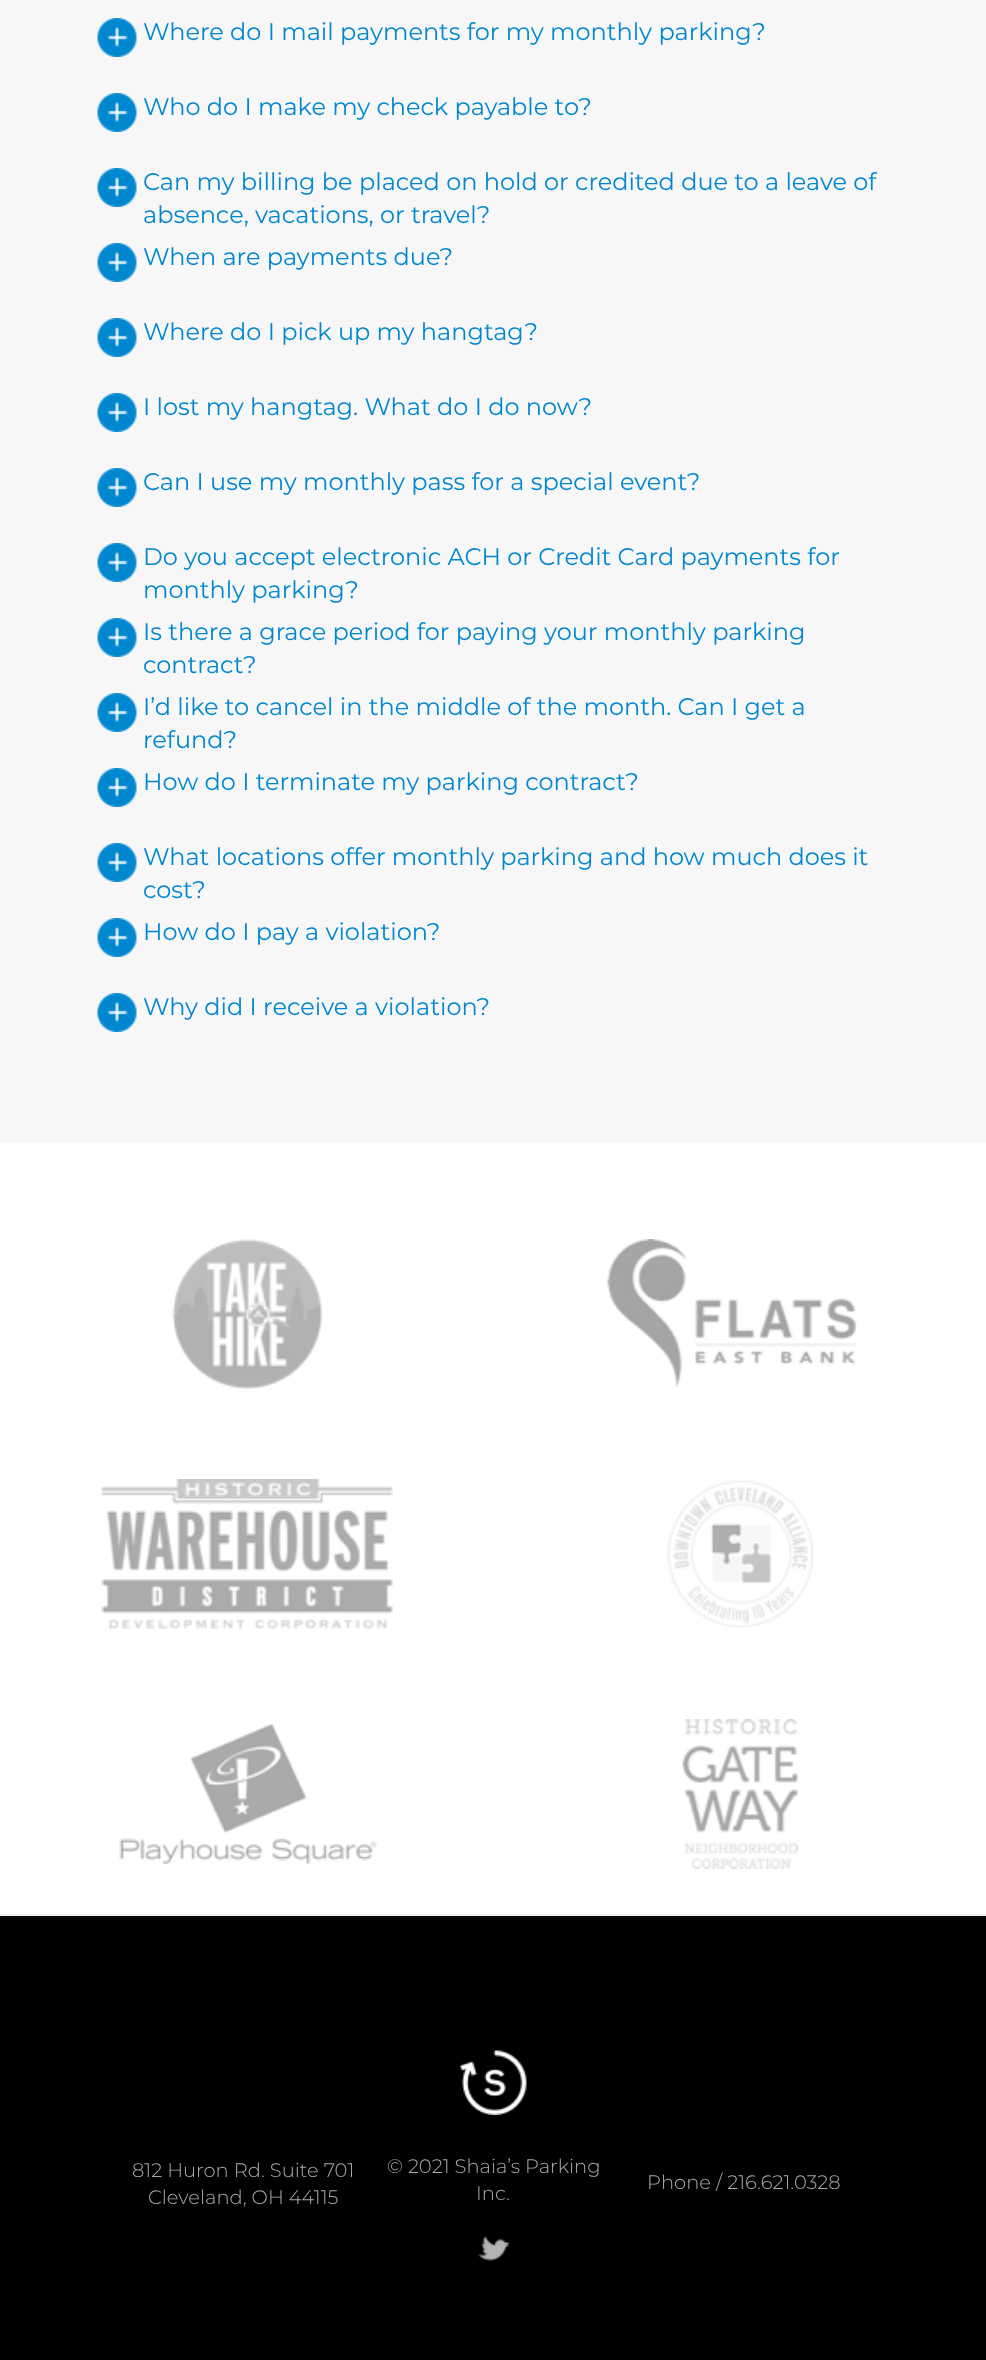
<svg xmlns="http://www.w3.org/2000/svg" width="986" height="2360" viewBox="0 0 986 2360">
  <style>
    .t1 { font: 100 24px Montserrat; fill: #0187d0; }
    .t2 { font: 300 19.5px Montserrat; fill: #aaa; }
  </style>
  <rect width="100%" height="100%" fill="#fff"/>
  <rect x="0" y="0" width="986" height="1143" fill="#f7f7f7"/>
  <image x="97" y="18" width="40" height="39" href="images/1.png"/>
  <text x="143" y="40" class="t1">Where do I mail payments for my monthly parking?</text>
  <image x="97" y="93" width="40" height="39" href="images/1.png"/>
  <text x="143" y="115" class="t1">Who do I make my check payable to?</text>
  <image x="97" y="168" width="40" height="39" href="images/1.png"/>
  <text x="143" y="190" class="t1">Can my billing be placed on hold or credited due to a leave of</text>
  <text x="143" y="223" class="t1">absence, vacations, or travel?</text>
  <image x="97" y="243" width="40" height="39" href="images/1.png"/>
  <text x="143" y="265" class="t1">When are payments due?</text>
  <image x="97" y="318" width="40" height="39" href="images/1.png"/>
  <text x="143" y="340" class="t1">Where do I pick up my hangtag?</text>
  <image x="97" y="393" width="40" height="39" href="images/1.png"/>
  <text x="143" y="415" class="t1">I lost my hangtag. What do I do now?</text>
  <image x="97" y="468" width="40" height="39" href="images/1.png"/>
  <text x="143" y="490" class="t1">Can I use my monthly pass for a special event?</text>
  <image x="97" y="543" width="40" height="39" href="images/1.png"/>
  <text x="143" y="565" class="t1">Do you accept electronic ACH or Credit Card payments for</text>
  <text x="143" y="598" class="t1">monthly parking?</text>
  <image x="97" y="618" width="40" height="39" href="images/1.png"/>
  <text x="143" y="640" class="t1">Is there a grace period for paying your monthly parking</text>
  <text x="143" y="673" class="t1">contract?</text>
  <image x="97" y="693" width="40" height="39" href="images/1.png"/>
  <text x="143" y="715" class="t1">I’d like to cancel in the middle of the month. Can I get a</text>
  <text x="143" y="748" class="t1">refund?</text>
  <image x="97" y="768" width="40" height="39" href="images/1.png"/>
  <text x="143" y="790" class="t1">How do I terminate my parking contract?</text>
  <image x="97" y="843" width="40" height="39" href="images/1.png"/>
  <text x="143" y="865" class="t1">What locations offer monthly parking and how much does it</text>
  <text x="143" y="898" class="t1">cost?</text>
  <image x="97" y="918" width="40" height="39" href="images/1.png"/>
  <text x="143" y="940" class="t1">How do I pay a violation?</text>
  <image x="97" y="993" width="40" height="39" href="images/1.png"/>
  <text x="143" y="1015" class="t1">Why did I receive a violation?</text>
  <image x="172" y="1239" width="151" height="150" href="images/2.png"/>
  <image x="607" y="1239" width="250" height="149" href="images/3.png"/>
  <image x="100" y="1479" width="293" height="150" href="images/4.png"/>
  <image x="667" y="1480" width="147" height="148" href="images/5.png"/>
  <image x="119" y="1724" width="259" height="141" href="images/6.png"/>
  <image x="682" y="1719" width="116" height="150" href="images/7.png"/>
  <rect x="0" y="1914" width="986" height="2" fill="#eee"/>
  <rect x="0" y="1916" width="986" height="444" fill="#000"/>
  <text x="132" y="2177" class="t2">812 Huron Rd. Suite 701</text>
  <text x="148" y="2204" class="t2">Cleveland, OH 44115</text>
  <image x="460" y="2050" width="67" height="65" href="images/8.png"/>
  <text x="387" y="2173" class="t2">© 2021 Shaia’s Parking</text>
  <text x="476" y="2200" class="t2">Inc.</text>
  <image x="478" y="2236" width="32" height="25" href="images/9.png"/>
  <text x="647" y="2189" class="t2">Phone / 216.621.0328</text>
</svg>
